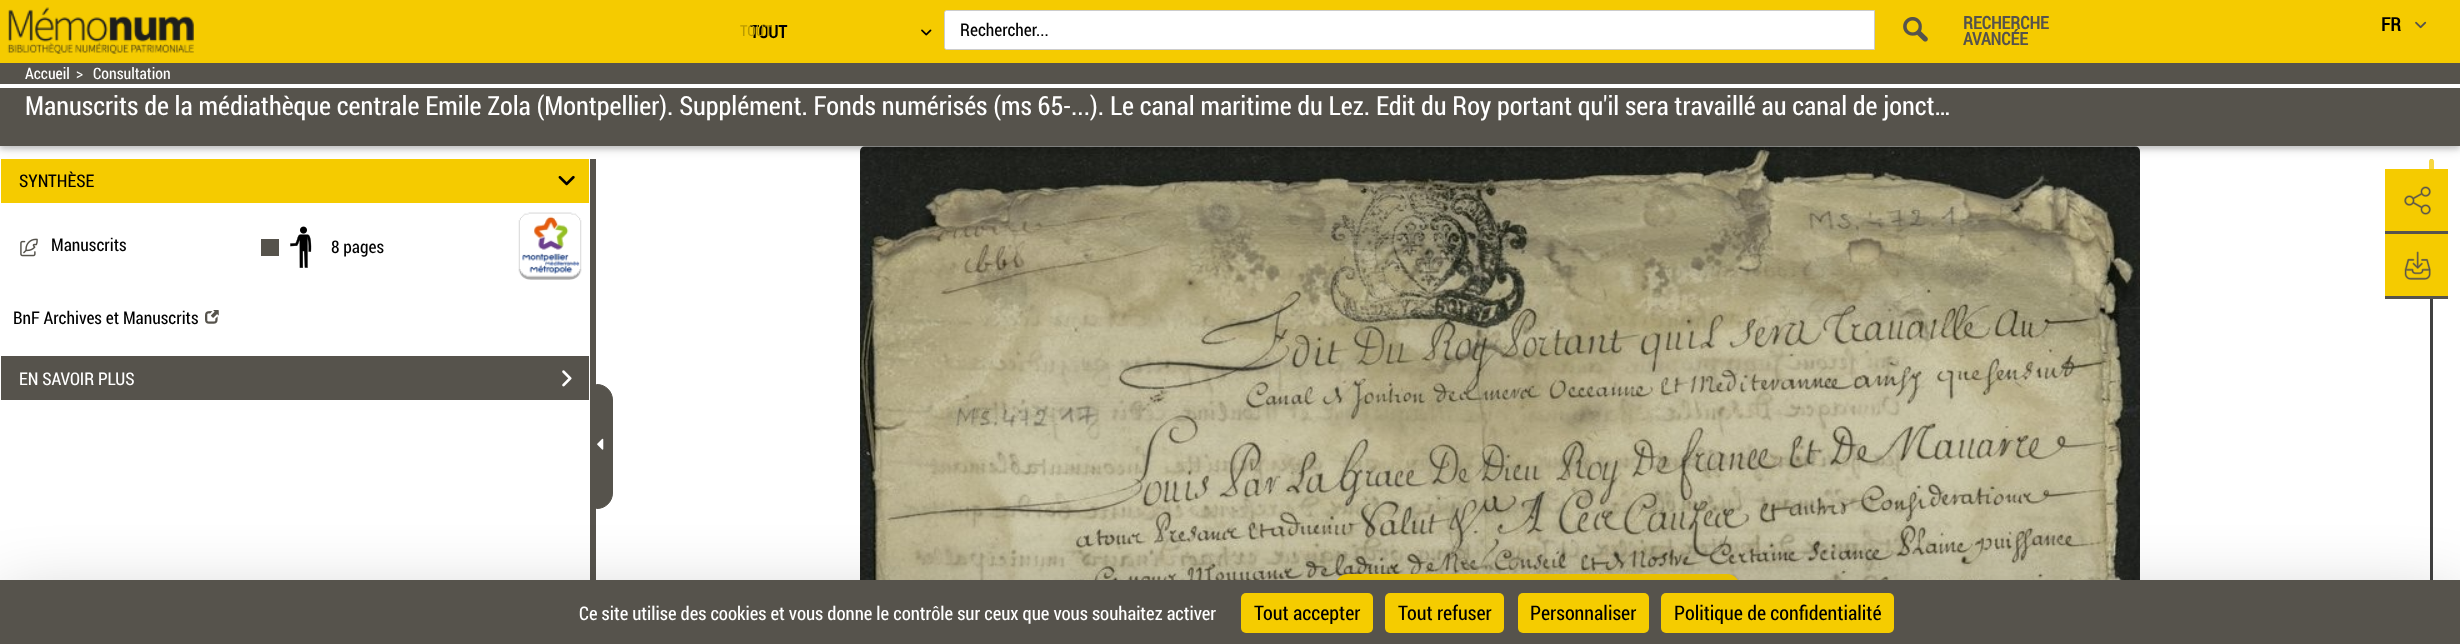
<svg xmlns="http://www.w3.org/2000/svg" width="2460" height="644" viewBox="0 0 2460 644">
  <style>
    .t1 { font: bold 17.5px Roboto Condensed; fill: #000; }
    .t2 { font: 15px Roboto Condensed; fill: #ba9a00; }
    .t3 { font: 17.5px Roboto Condensed; fill: #000; }
    .t4 { font: bold 17.5px Roboto Condensed; fill: #56534c; }
    .t5 { font: bold 18.75px Roboto Condensed; fill: #000; }
    .t6 { font: 15.75px Roboto Condensed; fill: #fff; }
    .t7 { font: 26.25px Roboto Condensed; fill: #fff; }
    .t8 { font: 17.5px Roboto Condensed; fill: #fff; }
    .t9 { font: 18.75px Roboto Condensed; fill: #fff; }
    .t10 { font: 20px Roboto Condensed; fill: #000; }
  </style>
  <rect width="100%" height="100%" fill="#fff"/>
  <image x="860" y="146" width="1280" height="434" href="images/12.png"/>
  <rect x="2430" y="159" width="3" height="474" rx="1.5" fill="#404040"/>
  <rect x="2429" y="159" width="5" height="124" rx="2.5" fill="#f8d840"/>
  <rect x="0" y="65" width="2460" height="84" fill="#0000001f" filter="blur(6px)"/>
  <rect x="0" y="65" width="2460" height="84" fill="#00000029" filter="blur(2.5px)"/>
  <rect x="0" y="0" width="2460" height="63" fill="#f5cb00"/>
  <image x="7" y="7" width="187" height="47" href="images/1.png"/>
  <text x="750" y="38" class="t1">TOUT</text>
  <text x="740" y="36" class="t2">TOUT</text>
  <image x="921" y="29" width="11" height="7" href="images/2.png"/>
  <path d="M946.5 10.5H1874.5V49.5H946.5C945.5 49.5 944.5 48.5 944.5 47.5V12.5C944.5 11.5 945.5 10.5 946.5 10.5Z" fill="#fff" stroke="#ccc"/>
  <text x="960" y="36" class="t3">Rechercher...</text>
  <image x="1903" y="17" width="25" height="25" href="images/3.png"/>
  <text x="1963" y="29" class="t4">RECHERCHE</text>
  <text x="1963" y="45" class="t4">AVANCÉE</text>
  <text x="2381" y="31" class="t5">FR</text>
  <image x="2415" y="21" width="12" height="8" href="images/4.png"/>
  <rect x="0" y="63" width="2460" height="83" fill="#56534c"/>
  <rect x="0" y="84" width="2460" height="4" fill="#fff"/>
  <text x="25" y="79" class="t6">Accueil</text>
  <text x="76" y="79" class="t6">&gt;</text>
  <text x="93" y="79" class="t6">Consultation</text>
  <text x="25" y="115" class="t7">Manuscrits de la médiathèque centrale Emile Zola (Montpellier). Supplément. Fonds numérisés (ms 65-...). Le canal maritime du Lez. Edit du Roy portant qu'il sera travaillé au canal de jonct…</text>
  <rect x="590" y="159" width="6" height="421" fill="#56534c"/>
  <rect x="1" y="159" width="588" height="44" fill="#f5cb00"/>
  <text x="19" y="187" class="t3">SYNTHÈSE</text>
  <image x="558" y="175" width="17" height="11" href="images/5.png"/>
  <image x="20" y="238" width="18" height="19" href="images/6.png"/>
  <text x="51" y="251" class="t3">Manuscrits</text>
  <rect x="261" y="239" width="18" height="17" fill="#56534c"/>
  <image x="290" y="226" width="22" height="42" href="images/7.png"/>
  <text x="331" y="253" class="t3">8 pages</text>
  <image x="518" y="212" width="64" height="68" href="images/8.png"/>
  <text x="13" y="324" class="t3">BnF Archives et Manuscrits</text>
  <image x="205" y="310" width="14" height="14" href="images/9.png"/>
  <rect x="1" y="356" width="588" height="44" fill="#56534c"/>
  <text x="19" y="385" class="t8">EN SAVOIR PLUS</text>
  <image x="562" y="370" width="10" height="17" href="images/10.png"/>
  <path d="M596.5 384.5H597C605.5 384.5 612.5 391.5 612.5 400V493C612.5 501.5 605.5 508.5 597 508.5H596.5Z" fill="#56534c" stroke="#56534c"/>
  <image x="597" y="438" width="7" height="12" href="images/11.png"/>
  <rect x="2385" y="169" width="63" height="62" fill="#f5cb00"/>
  <image x="2404" y="186" width="27" height="29" href="images/13.png"/>
  <rect x="2385" y="231" width="63" height="3" fill="#56534c"/>
  <rect x="2385" y="234" width="63" height="62" fill="#f5cb00"/>
  <image x="2404" y="251" width="27" height="29" href="images/14.png"/>
  <rect x="2385" y="296" width="63" height="3" fill="#56534c"/>
  <path d="M1348 574H1727C1734 574 1740 580 1740 587V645H1335V587C1335 580 1341 574 1348 574Z" fill="#f5cb00"/>
  <rect x="0" y="605" width="2460" height="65" fill="#00000040" filter="blur(37.5px)"/>
  <rect x="0" y="580" width="2460" height="64" fill="#56534c"/>
  <text x="579" y="620" class="t9">Ce site utilise des cookies et vous donne le contrôle sur ceux que vous souhaitez activer</text>
  <rect x="1241" y="593" width="132" height="40" rx="5" fill="#f5cc00"/>
  <text x="1254" y="620" class="t10">Tout accepter</text>
  <rect x="1385" y="593" width="119" height="40" rx="5" fill="#f5cc00"/>
  <text x="1398" y="620" class="t10">Tout refuser</text>
  <rect x="1518" y="593" width="131" height="40" rx="5" fill="#f5cc00"/>
  <text x="1530" y="620" class="t10">Personnaliser</text>
  <rect x="1661" y="593" width="233" height="40" rx="5" fill="#f5cc00"/>
  <text x="1674" y="620" class="t10">Politique de confidentialité</text>
</svg>
